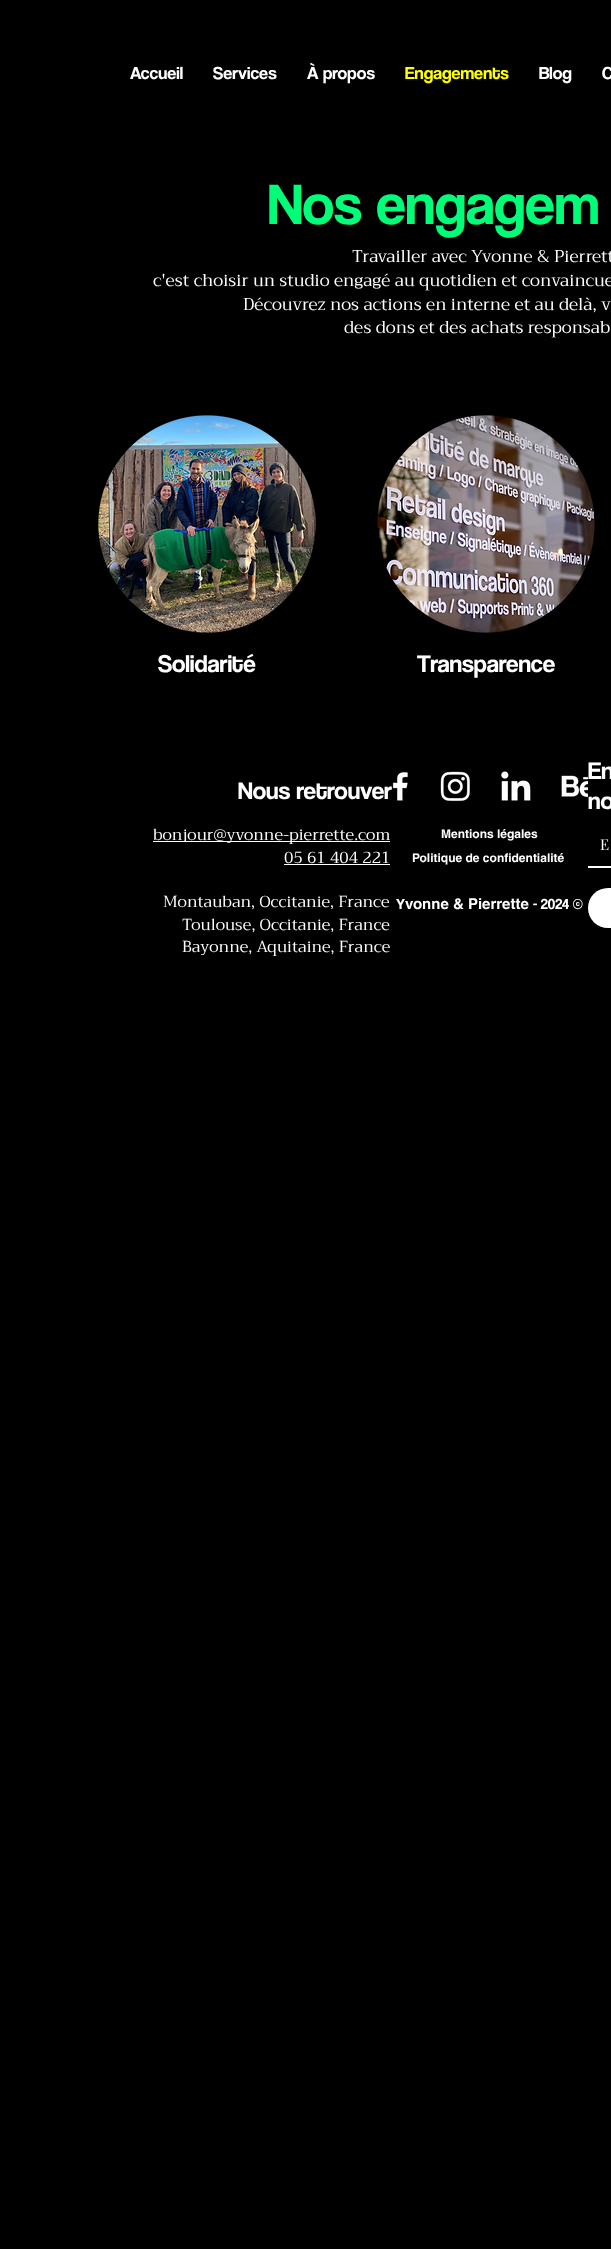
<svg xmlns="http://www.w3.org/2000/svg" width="611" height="2249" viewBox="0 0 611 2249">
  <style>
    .t1 { font: 18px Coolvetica; fill: #fff; }
    .t2 { font: 18px Coolvetica; fill: #ff0; }
    .t3 { font: 59px 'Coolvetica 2'; fill: #00ff78; }
    .t4 { font: 17px Trirong; fill: #fff; }
    .t5 { font: 25px 'Coolvetica 2'; fill: #fff; }
    .t6 { font: 16px Trirong; fill: #fff; }
    .t7 { font: bold 12px helvetica; fill: #fff; }
    .t8 { font: 15px Coolvetica; fill: #fff; }
    .t9 { font: bold 15px helvetica; fill: #fff; }
    .t10 { font: 15px Playfair Display; fill: #fff; }
  </style>
  <rect width="100%" height="100%" fill="#000"/>
  <text x="130" y="79" class="t1">Accueil</text>
  <text x="213" y="79" class="t1">Services</text>
  <text x="307" y="79" class="t1">À propos</text>
  <text x="405" y="79" class="t2">Engagements</text>
  <text x="539" y="79" class="t1">Blog</text>
  <text x="602" y="79" class="t1">C</text>
  <text x="268" y="224" class="t3">Nos engagem</text>
  <text x="352" y="262" class="t4">Travailler avec Yvonne &amp; Pierrett</text>
  <text x="153" y="286" class="t4">c'est choisir un studio engagé au quotidien et convaincue</text>
  <text x="243" y="310" class="t4">Découvrez nos actions en interne et au delà, v</text>
  <text x="344" y="333" class="t4">des dons et des achats responsab</text>
  <image x="98" y="415" width="218" height="218" href="images/1.png"/>
  <image x="377" y="415" width="218" height="218" href="images/2.png"/>
  <text x="158" y="672" class="t5">Solidarité</text>
  <text x="417" y="672" class="t5">Transparence</text>
  <text x="238" y="799" class="t5">Nous retrouver</text>
  <rect x="153" y="841" width="237" height="1" fill="#fff"/>
  <text x="153" y="840" class="t6">bonjour@yvonne-pierrette.com</text>
  <text x="284" y="863" class="t6">05 61 404 221</text>
  <rect x="284" y="864" width="106" height="1" fill="#fff"/>
  <text x="163" y="907" class="t6">Montauban, Occitanie, France</text>
  <text x="182" y="930" class="t6">Toulouse, Occitanie, France</text>
  <text x="182" y="952" class="t6">Bayonne, Aquitaine, France</text>
  <image x="392" y="772" width="16" height="29" href="images/3.png"/>
  <image x="440" y="771" width="30" height="31" href="images/4.png"/>
  <image x="501" y="771" width="30" height="30" href="images/5.png"/>
  <image x="561" y="775" width="27" height="23" href="images/6.png"/>
  <text x="441" y="838" class="t7">Mentions légales</text>
  <text x="412" y="862" class="t7">Politique de confidentialité</text>
  <text x="396" y="909" class="t8">Y</text>
  <text x="405" y="909" class="t9">vonne &amp; Pierrette</text>
  <text x="533" y="909" class="t8">- 2024 ©</text>
  <text x="588" y="779" class="t5">En</text>
  <text x="588" y="809" class="t5">no</text>
  <rect x="588" y="866" width="23" height="2" fill="#fff"/>
  <text x="600" y="850" class="t10">E</text>
  <rect x="588" y="888" width="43" height="40" rx="20" fill="#fff"/>
</svg>
